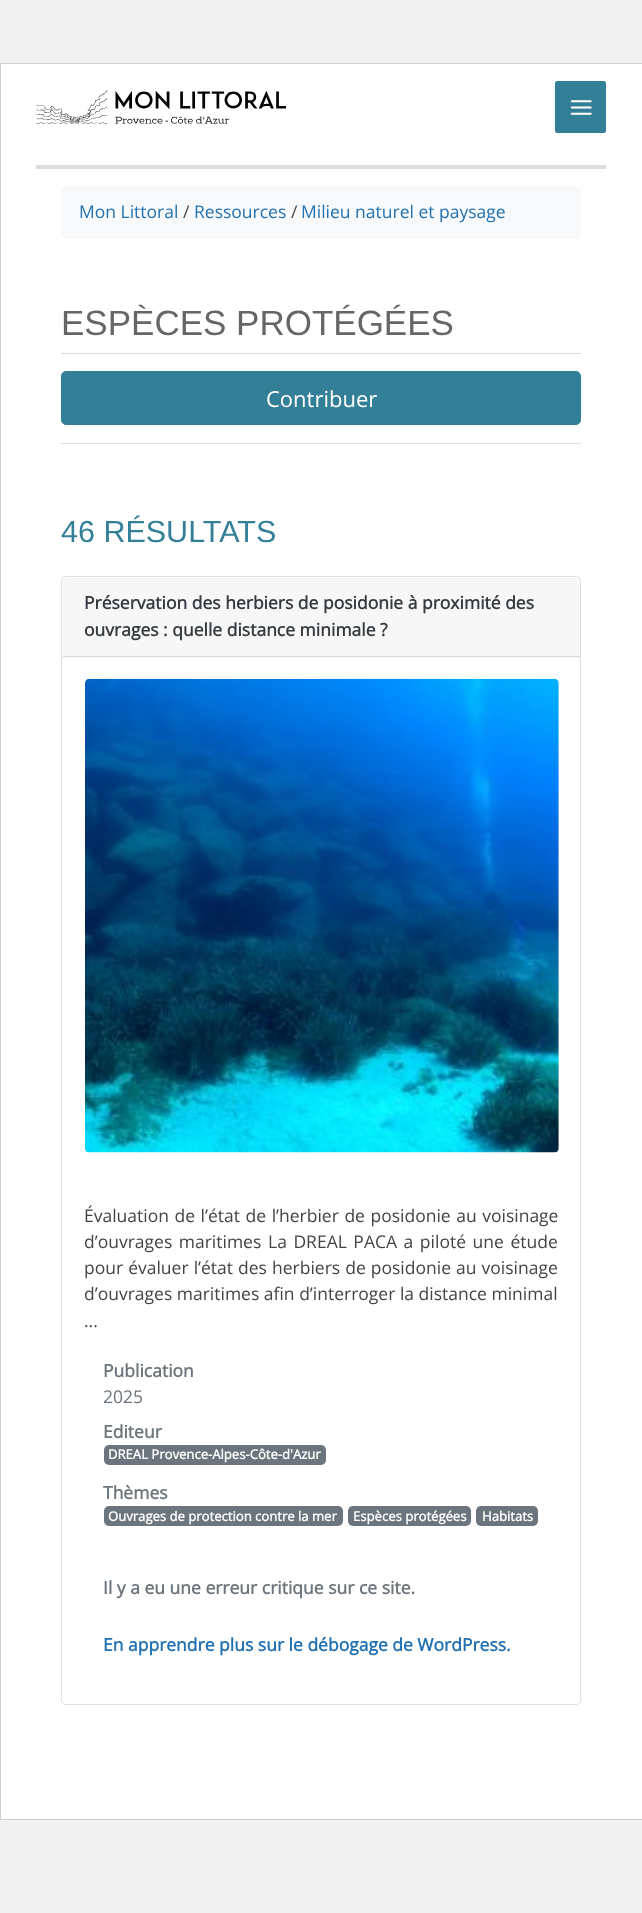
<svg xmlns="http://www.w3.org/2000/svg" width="642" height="1913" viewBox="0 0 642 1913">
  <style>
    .t1 { font: 17.5px Open Sans; fill: #2271b1; }
    .t2 { font: 17.5px Open Sans; fill: #444; }
    .t3 { font: 35px Liberation Sans; fill: #666; }
    .t4 { font: 22px Open Sans; fill: #fff; }
    .t5 { font: 30.5px Liberation Sans; fill: #347f98; }
    .t6 { font: bold 17.5px Open Sans; fill: #343a40; }
    .t7 { font: bold 17.5px Open Sans; fill: #6c757d; }
    .t8 { font: 17.5px Open Sans; fill: #6c757d; }
    .t9 { font: bold 13.1px Open Sans; fill: #fff; }
    .t10 { font: bold 17.5px Open Sans; fill: #2271b1; }
  </style>
  <rect width="100%" height="100%" fill="#f1f1f1"/>
  <rect x="0.5" y="63.5" width="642" height="1756" fill="#fff" stroke="#ccd0d4"/>
  <rect x="36" y="165" width="570" height="4" fill="#ddd"/>
  <image x="36" y="90" width="250" height="34" href="images/1.png"/>
  <rect x="555" y="81" width="51" height="52" rx="2.5" fill="#347f98"/>
  <image x="570" y="100" width="22" height="15" href="images/2.png"/>
  <rect x="61" y="186" width="520" height="53" rx="5" fill="#f8f9fa"/>
  <text x="79" y="218" class="t1">Mon Littoral</text>
  <text x="183" y="218" class="t2">/</text>
  <text x="194" y="218" class="t1">Ressources</text>
  <text x="291" y="218" class="t2">/</text>
  <text x="301" y="218" class="t1">Milieu naturel et paysage</text>
  <rect x="61" y="443" width="520" height="1" fill="#dee2e6"/>
  <rect x="61" y="353" width="520" height="1" fill="#dadada"/>
  <text x="61" y="335" class="t3">ESPÈCES PROTÉGÉES</text>
  <rect x="61.5" y="371.5" width="519" height="53" rx="4.5" fill="#337f97" stroke="#337f97"/>
  <text x="266" y="407" class="t4">Contribuer</text>
  <text x="61" y="542" class="t5">46 RÉSULTATS</text>
  <rect x="61.5" y="576.5" width="519" height="1128" rx="4.5" fill="none" stroke="#dfdfdf"/>
  <rect x="63" y="578" width="517" height="80" fill="#00000008"/>
  <rect x="63" y="656" width="517" height="1" fill="#d8d8d8"/>
  <text x="84" y="609" class="t6">Préservation des herbiers de posidonie à proximité des</text>
  <text x="84" y="636" class="t6">ouvrages : quelle distance minimale ?</text>
  <image x="85" y="678" width="474" height="475" href="images/3.png"/>
  <text x="84" y="1222" word-spacing="1" class="t2">Évaluation de l’état de l’herbier de posidonie au voisinage</text>
  <text x="84" y="1248" word-spacing="2" class="t2">d’ouvrages maritimes</text>
  <text x="268" y="1248" word-spacing="2" class="t2">La DREAL PACA a piloté une étude</text>
  <text x="84" y="1274" word-spacing="0.5" class="t2">pour évaluer l’état des herbiers de posidonie au voisinage</text>
  <text x="84" y="1300" class="t2">d’ouvrages maritimes afin d’interroger la distance minimal</text>
  <text x="84" y="1327" class="t2">...</text>
  <text x="103" y="1377" class="t7">Publication</text>
  <text x="103" y="1403" class="t8">2025</text>
  <text x="103" y="1438" class="t7">Editeur</text>
  <rect x="104" y="1445" width="222" height="20" rx="5" fill="#6c757d"/>
  <text x="108" y="1459" class="t9">DREAL Provence-Alpes-Côte-d'Azur</text>
  <text x="103" y="1499" class="t7">Thèmes</text>
  <rect x="104" y="1506" width="239" height="20" rx="5" fill="#6c757d"/>
  <text x="108" y="1521" class="t9">Ouvrages de protection contre la mer</text>
  <rect x="348" y="1506" width="123" height="20" rx="5" fill="#6c757d"/>
  <text x="353" y="1521" class="t9">Espèces protégées</text>
  <rect x="476" y="1506" width="62" height="20" rx="5" fill="#6c757d"/>
  <text x="482" y="1521" class="t9">Habitats</text>
  <text x="103" y="1594" class="t7">Il y a eu une erreur critique sur ce site.</text>
  <text x="103" y="1651" class="t10">En apprendre plus sur le débogage de WordPress.</text>
</svg>
